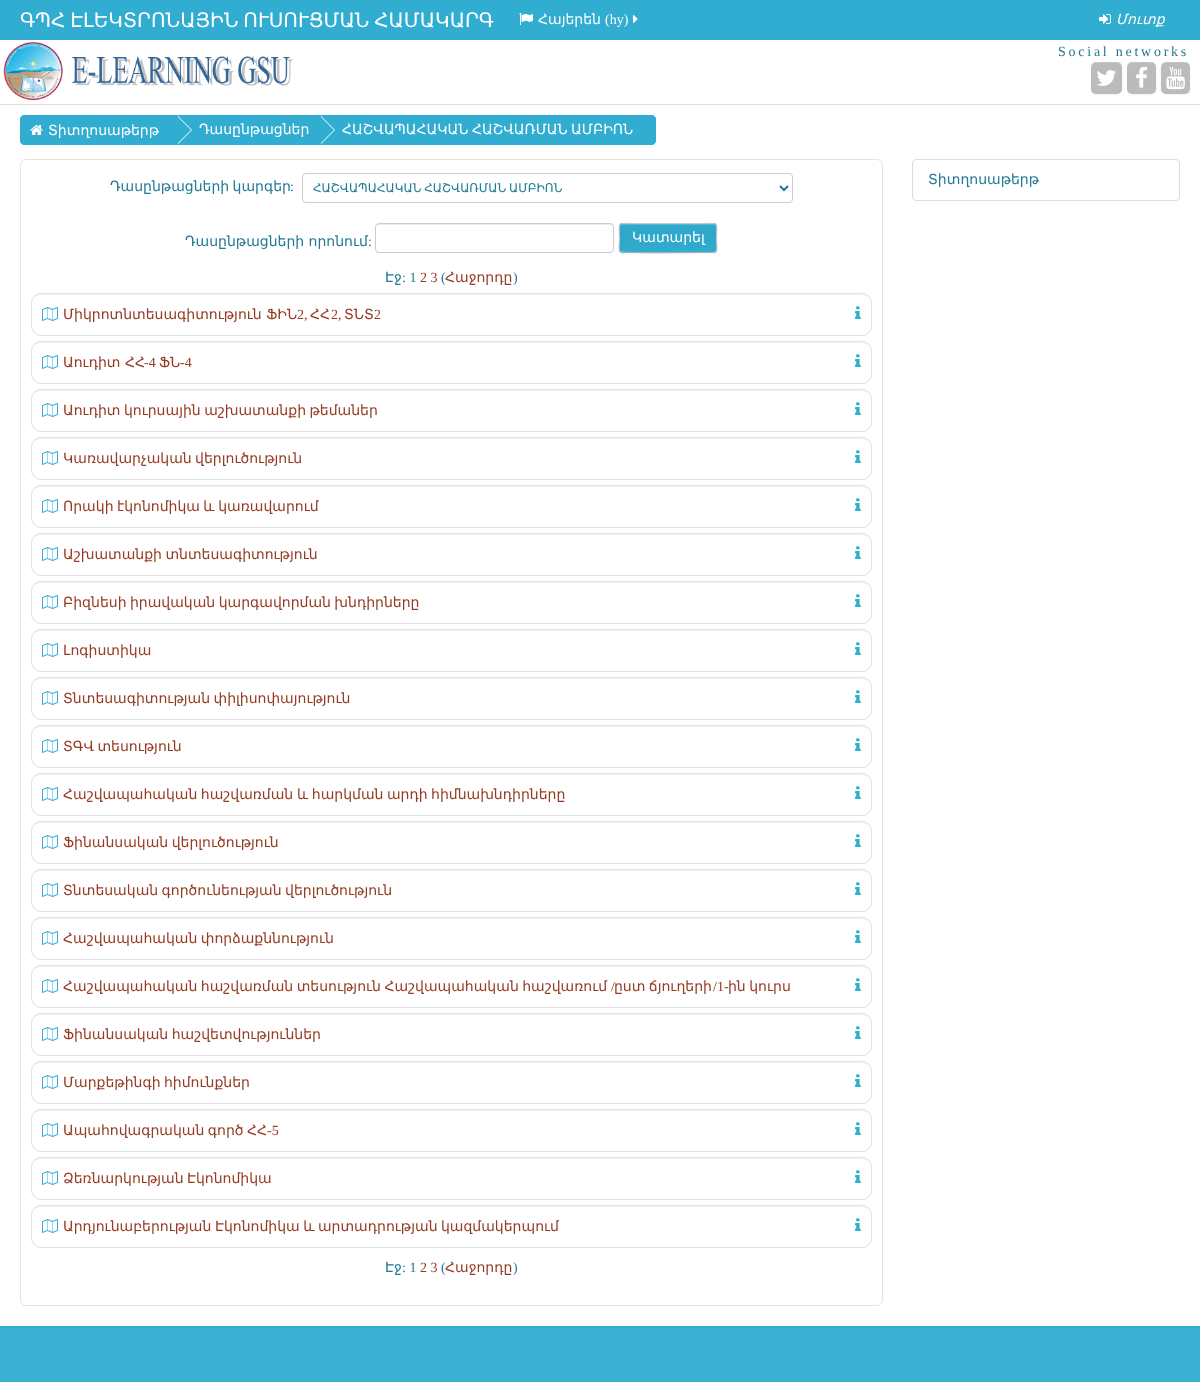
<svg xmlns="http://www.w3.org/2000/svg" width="1200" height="1382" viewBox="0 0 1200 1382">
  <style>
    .t1 { font: 20px DejaVu Sans; fill: #fff; }
    .t2 { font: 14px DejaVu Sans; fill: #fff; }
    .t3 { font: 14px Liberation Serif; fill: #fff; }
    .t4 { font: italic 14px DejaVu Sans; fill: #fff; }
    .t5 { font: 14px Liberation Serif; letter-spacing: 2.75px; fill: #217a94; }
    .t6 { font: 14px DejaVu Sans; fill: #217a94; }
    .t7 { font: 14px Liberation Serif; fill: #217a94; }
    .t8 { font: 12px DejaVu Sans; fill: #217a94; }
    .t9 { font: 14px Liberation Serif; fill: #943b21; }
    .t10 { font: 14px DejaVu Sans; fill: #943b21; }
  </style>
  <defs>
    <clipPath id="clip1"><rect x="619" y="223" width="98" height="30" rx="4"/></clipPath>
    <linearGradient id="g1" gradientUnits="userSpaceOnUse" x1="668" y1="252" x2="668" y2="224"><stop offset="0" stop-color="#30add1"/><stop offset="1" stop-color="#2b9cbc" stop-opacity="0.25"/></linearGradient>
  </defs>
  <rect width="100%" height="100%" fill="#fff"/>
  <rect x="0" y="0" width="1200" height="40" fill="#30add1"/>
  <text x="20" y="27" word-spacing="-1.5" class="t1">ԳՊՀ ԷԼԵԿՏՐՈՆԱՅԻՆ ՈՒՍՈՒՑՄԱՆ ՀԱՄԱԿԱՐԳ</text>
  <image x="519" y="13" width="14" height="12" href="images/1.png"/>
  <text x="538" y="24" class="t2">Հայերեն</text>
  <text x="605" y="24" class="t3">(hy)</text>
  <image x="633" y="15" width="5" height="8" href="images/2.png"/>
  <image x="1099" y="14" width="12" height="10" href="images/3.png"/>
  <text x="1116" y="24" class="t4">Մուտք</text>
  <rect x="0" y="104" width="1200" height="1" fill="#ddd"/>
  <image x="3" y="42" width="290" height="59" href="images/4.png"/>
  <text x="1058" y="56" class="t5">Social networks</text>
  <rect x="1091" y="63" width="31" height="32" rx="5" fill="#0000000d" filter="blur(1px)"/>
  <rect x="1091" y="62" width="31" height="32" rx="5" fill="#bbb"/>
  <path d="M1096 63C1101.5 63 1116.5 61.5 1119.5 63.5C1121 64 1121.5 65.5 1122 67C1122 62 1117.5 62 1113.5 62H1099.5C1094 62 1091 62.5 1091 68.5C1091.5 65.5 1093 63 1096 63Z" fill="#ffffff33"/>
  <image x="1097" y="70" width="19" height="16" href="images/5.png"/>
  <rect x="1127" y="63" width="29" height="32" rx="5" fill="#0000000d" filter="blur(1px)"/>
  <rect x="1127" y="62" width="29" height="32" rx="5" fill="#bbb"/>
  <path d="M1132 63C1137 63 1150.5 61.5 1153.5 63.5C1155 64 1155.5 65.5 1156 67C1156 62 1151.5 62 1148 62H1135C1129.5 62 1127 62.5 1127 68.5C1127.5 65.5 1129 63 1132 63Z" fill="#ffffff33"/>
  <image x="1136" y="66" width="11" height="22" href="images/6.png"/>
  <rect x="1161" y="63" width="29" height="32" rx="5" fill="#0000000d" filter="blur(1px)"/>
  <rect x="1161" y="62" width="29" height="32" rx="5" fill="#bbb"/>
  <path d="M1166 63C1171 63 1184.5 61.5 1187.5 63.5C1189 64 1189.5 65.5 1190 67C1190 62 1185.5 62 1182 62H1169C1163.5 62 1161 62.5 1161 68.5C1161.5 65.5 1163 63 1166 63Z" fill="#ffffff33"/>
  <image x="1166" y="66" width="19" height="24" href="images/7.png"/>
  <path d="M24 115.5H177.5V144.5H24C22 144.5 20.5 143 20.5 141V119C20.5 117 22 115.5 24 115.5Z" fill="#30add1" stroke="#30add1"/>
  <rect x="178" y="115" width="143" height="30" fill="#30add1"/>
  <path d="M178 144V116L192 130Z" fill="#fff"/>
  <path d="M177 144V116L191 130Z" fill="#30add1"/>
  <image x="30" y="125" width="13" height="10" href="images/8.png"/>
  <text x="48" y="135" class="t2">Տիտղոսաթերթ</text>
  <path d="M321.5 115.5H652C654 115.5 655.5 117 655.5 119V141C655.5 143 654 144.5 652 144.5H321.5Z" fill="#30add1" stroke="#30add1"/>
  <path d="M321 144V116L335 130Z" fill="#fff"/>
  <path d="M320 144V116L334 130Z" fill="#30add1"/>
  <text x="199" y="134" class="t2">Դասընթացներ</text>
  <text x="342" y="134" word-spacing="-1" class="t2">ՀԱՇՎԱՊԱՀԱԿԱՆ ՀԱՇՎԱՌՄԱՆ ԱՄԲԻՈՆ</text>
  <rect x="20.5" y="159.5" width="862" height="1146" rx="5.5" fill="none" stroke="#e3e3e3"/>
  <text x="110" y="191" word-spacing="-1" class="t6">Դասընթացների կարգեր</text>
  <text x="290" y="191" class="t7">:</text>
  <rect x="302.5" y="173.5" width="490" height="29" rx="3.5" fill="none" stroke="#ccc"/>
  <path d="M780 186L784 190L788 186" fill="none" stroke="#217a94" stroke-width="2"/>
  <text x="313" y="192" word-spacing="-1" class="t8">ՀԱՇՎԱՊԱՀԱԿԱՆ ՀԱՇՎԱՌՄԱՆ ԱՄԲԻՈՆ</text>
  <text x="185" y="246" class="t6">Դասընթացների որոնում</text>
  <text x="368" y="246" class="t7">:</text>
  <path d="M379 225H611L613 226V228C613 226 612 224 610 224H379C377 224 376 226 376 228C376 226 377 225 379 225Z" fill="#ececec"/>
  <rect x="375.5" y="223.5" width="238" height="29" rx="3.5" fill="none" stroke="#ccc"/>
  <rect x="619" y="224" width="98" height="30" rx="4" fill="#0000000d" filter="blur(1px)"/>
  <rect x="619" y="223" width="98" height="30" rx="4" fill="#30add1"/>
  <g clip-path="url(#clip1)">
    <rect x="619" y="224" width="98" height="28" fill="url(#g1)"/>
  </g>
  <path d="M623 225H713C715 225 716 226 716 228C716 220 701 224 698 224H638C635 224 620 220 620 228C620 226 621 225 623 225Z" fill="#ffffff33"/>
  <path d="M715.5 251.5L713 252.5H698C689.5 252.5 623 253.5 621 251.5H620.5" fill="none" stroke="#b3b3b3"/>
  <path d="M620.5 251.5C618 249 619.5 244.5 619.5 241.5C619.5 220.5 616 223.5 638 223.5H698C720 223.5 716.5 220.5 716.5 241.5C716.5 244.5 718 249 715.5 251.5" fill="none" stroke="#ccc"/>
  <text x="632" y="242" class="t2">Կատարել</text>
  <text x="385" y="282" class="t6">Էջ</text>
  <text x="402" y="282" class="t7">: 1</text>
  <text x="420" y="282" class="t9">2 3</text>
  <text x="441" y="282" class="t7">(</text>
  <text x="445" y="282" class="t10">Հաջորդը</text>
  <text x="513" y="282" class="t7">)</text>
  <path d="M41 295H862C867 295 871 299 871 304C871 299 868 294 862 294H41C35 294 32 299 32 304C32 299 36 295 41 295Z" fill="#f2f2f2"/>
  <rect x="31.5" y="293.5" width="840" height="42" rx="9.5" fill="none" stroke="#e1e1e1"/>
  <image x="42" y="307" width="16" height="14" href="images/9.png"/>
  <text x="63" y="319" class="t10">Միկրոտնտեսագիտություն ՖԻՆ</text>
  <text x="297" y="319" class="t9">2,</text>
  <text x="310" y="319" class="t10">ՀՀ</text>
  <text x="331" y="319" class="t9">2,</text>
  <text x="344" y="319" class="t10">ՏՆՏ</text>
  <text x="374" y="319" class="t9">2</text>
  <image x="855" y="306" width="6" height="13" href="images/10.png"/>
  <path d="M41 343H862C867 343 871 347 871 352C871 347 868 342 862 342H41C35 342 32 347 32 352C32 347 36 343 41 343Z" fill="#f2f2f2"/>
  <rect x="31.5" y="341.5" width="840" height="42" rx="9.5" fill="none" stroke="#e1e1e1"/>
  <image x="42" y="355" width="16" height="14" href="images/9.png"/>
  <text x="63" y="367" class="t10">Աուդիտ ՀՀ</text>
  <text x="144" y="367" class="t9">-4</text>
  <text x="159" y="367" class="t10">ՖՆ</text>
  <text x="180" y="367" class="t9">-4</text>
  <image x="855" y="354" width="6" height="13" href="images/10.png"/>
  <path d="M41 391H862C867 391 871 395 871 400C871 395 868 390 862 390H41C35 390 32 395 32 400C32 395 36 391 41 391Z" fill="#f2f2f2"/>
  <rect x="31.5" y="389.5" width="840" height="42" rx="9.5" fill="none" stroke="#e1e1e1"/>
  <image x="42" y="403" width="16" height="14" href="images/9.png"/>
  <text x="63" y="415" word-spacing="-1" class="t10">Աուդիտ կուրսային աշխատանքի թեմաներ</text>
  <image x="855" y="402" width="6" height="13" href="images/10.png"/>
  <path d="M41 439H862C867 439 871 443 871 448C871 443 868 438 862 438H41C35 438 32 443 32 448C32 443 36 439 41 439Z" fill="#f2f2f2"/>
  <rect x="31.5" y="437.5" width="840" height="42" rx="9.5" fill="none" stroke="#e1e1e1"/>
  <image x="42" y="451" width="16" height="14" href="images/9.png"/>
  <text x="63" y="463" word-spacing="-1" class="t10">Կառավարչական վերլուծություն</text>
  <image x="855" y="450" width="6" height="13" href="images/10.png"/>
  <path d="M41 487H862C867 487 871 491 871 496C871 491 868 486 862 486H41C35 486 32 491 32 496C32 491 36 487 41 487Z" fill="#f2f2f2"/>
  <rect x="31.5" y="485.5" width="840" height="42" rx="9.5" fill="none" stroke="#e1e1e1"/>
  <image x="42" y="499" width="16" height="14" href="images/9.png"/>
  <text x="63" y="511" word-spacing="-1" class="t10">Որակի էկոնոմիկա և կառավարում</text>
  <image x="855" y="498" width="6" height="13" href="images/10.png"/>
  <path d="M41 535H862C867 535 871 539 871 544C871 539 868 534 862 534H41C35 534 32 539 32 544C32 539 36 535 41 535Z" fill="#f2f2f2"/>
  <rect x="31.5" y="533.5" width="840" height="42" rx="9.5" fill="none" stroke="#e1e1e1"/>
  <image x="42" y="547" width="16" height="14" href="images/9.png"/>
  <text x="63" y="559" word-spacing="-1" class="t10">Աշխատանքի տնտեսագիտություն</text>
  <image x="855" y="546" width="6" height="13" href="images/10.png"/>
  <path d="M41 583H862C867 583 871 587 871 592C871 587 868 582 862 582H41C35 582 32 587 32 592C32 587 36 583 41 583Z" fill="#f2f2f2"/>
  <rect x="31.5" y="581.5" width="840" height="42" rx="9.5" fill="none" stroke="#e1e1e1"/>
  <image x="42" y="595" width="16" height="14" href="images/9.png"/>
  <text x="63" y="607" word-spacing="-1" class="t10">Բիզնեսի իրավական կարգավորման խնդիրները</text>
  <image x="855" y="594" width="6" height="13" href="images/10.png"/>
  <path d="M41 631H862C867 631 871 635 871 640C871 635 868 630 862 630H41C35 630 32 635 32 640C32 635 36 631 41 631Z" fill="#f2f2f2"/>
  <rect x="31.5" y="629.5" width="840" height="42" rx="9.5" fill="none" stroke="#e1e1e1"/>
  <image x="42" y="643" width="16" height="14" href="images/9.png"/>
  <text x="63" y="655" class="t10">Լոգիստիկա</text>
  <image x="855" y="642" width="6" height="13" href="images/10.png"/>
  <path d="M41 679H862C867 679 871 683 871 688C871 683 868 678 862 678H41C35 678 32 683 32 688C32 683 36 679 41 679Z" fill="#f2f2f2"/>
  <rect x="31.5" y="677.5" width="840" height="42" rx="9.5" fill="none" stroke="#e1e1e1"/>
  <image x="42" y="691" width="16" height="14" href="images/9.png"/>
  <text x="63" y="703" word-spacing="-1" class="t10">Տնտեսագիտության փիլիսոփայություն</text>
  <image x="855" y="690" width="6" height="13" href="images/10.png"/>
  <path d="M41 727H862C867 727 871 731 871 736C871 731 868 726 862 726H41C35 726 32 731 32 736C32 731 36 727 41 727Z" fill="#f2f2f2"/>
  <rect x="31.5" y="725.5" width="840" height="42" rx="9.5" fill="none" stroke="#e1e1e1"/>
  <image x="42" y="739" width="16" height="14" href="images/9.png"/>
  <text x="63" y="751" word-spacing="-1" class="t10">ՏԳՎ տեսություն</text>
  <image x="855" y="738" width="6" height="13" href="images/10.png"/>
  <path d="M41 775H862C867 775 871 779 871 784C871 779 868 774 862 774H41C35 774 32 779 32 784C32 779 36 775 41 775Z" fill="#f2f2f2"/>
  <rect x="31.5" y="773.5" width="840" height="42" rx="9.5" fill="none" stroke="#e1e1e1"/>
  <image x="42" y="787" width="16" height="14" href="images/9.png"/>
  <text x="63" y="799" word-spacing="-1" class="t10">Հաշվապահական հաշվառման</text>
  <text x="297" y="799" word-spacing="-1" class="t10">և հարկման արդի հիմնախնդիրները</text>
  <image x="855" y="786" width="6" height="13" href="images/10.png"/>
  <path d="M41 823H862C867 823 871 827 871 832C871 827 868 822 862 822H41C35 822 32 827 32 832C32 827 36 823 41 823Z" fill="#f2f2f2"/>
  <rect x="31.5" y="821.5" width="840" height="42" rx="9.5" fill="none" stroke="#e1e1e1"/>
  <image x="42" y="835" width="16" height="14" href="images/9.png"/>
  <text x="63" y="847" word-spacing="-1" class="t10">Ֆինանսական վերլուծություն</text>
  <image x="855" y="834" width="6" height="13" href="images/10.png"/>
  <path d="M41 871H862C867 871 871 875 871 880C871 875 868 870 862 870H41C35 870 32 875 32 880C32 875 36 871 41 871Z" fill="#f2f2f2"/>
  <rect x="31.5" y="869.5" width="840" height="42" rx="9.5" fill="none" stroke="#e1e1e1"/>
  <image x="42" y="883" width="16" height="14" href="images/9.png"/>
  <text x="63" y="895" word-spacing="-1" class="t10">Տնտեսական գործունեության վերլուծություն</text>
  <image x="855" y="882" width="6" height="13" href="images/10.png"/>
  <path d="M41 919H862C867 919 871 923 871 928C871 923 868 918 862 918H41C35 918 32 923 32 928C32 923 36 919 41 919Z" fill="#f2f2f2"/>
  <rect x="31.5" y="917.5" width="840" height="42" rx="9.5" fill="none" stroke="#e1e1e1"/>
  <image x="42" y="931" width="16" height="14" href="images/9.png"/>
  <text x="63" y="943" word-spacing="-1" class="t10">Հաշվապահական փորձաքննություն</text>
  <image x="855" y="930" width="6" height="13" href="images/10.png"/>
  <path d="M41 967H862C867 967 871 971 871 976C871 971 868 966 862 966H41C35 966 32 971 32 976C32 971 36 967 41 967Z" fill="#f2f2f2"/>
  <rect x="31.5" y="965.5" width="840" height="42" rx="9.5" fill="none" stroke="#e1e1e1"/>
  <image x="42" y="979" width="16" height="14" href="images/9.png"/>
  <text x="63" y="991" word-spacing="-1" class="t10">Հաշվապահական հաշվառման տեսություն Հաշվապահական հաշվառում</text>
  <text x="611" y="991" class="t9">/</text>
  <text x="614" y="991" word-spacing="-1" class="t10">ըստ ճյուղերի</text>
  <text x="713" y="991" class="t9">/1-</text>
  <text x="728" y="991" word-spacing="-1" class="t10">ին կուրս</text>
  <image x="855" y="978" width="6" height="13" href="images/10.png"/>
  <path d="M41 1015H862C867 1015 871 1019 871 1024C871 1019 868 1014 862 1014H41C35 1014 32 1019 32 1024C32 1019 36 1015 41 1015Z" fill="#f2f2f2"/>
  <rect x="31.5" y="1013.5" width="840" height="42" rx="9.5" fill="none" stroke="#e1e1e1"/>
  <image x="42" y="1027" width="16" height="14" href="images/9.png"/>
  <text x="63" y="1039" word-spacing="-1" class="t10">Ֆինանսական հաշվետվություններ</text>
  <image x="855" y="1026" width="6" height="13" href="images/10.png"/>
  <path d="M41 1063H862C867 1063 871 1067 871 1072C871 1067 868 1062 862 1062H41C35 1062 32 1067 32 1072C32 1067 36 1063 41 1063Z" fill="#f2f2f2"/>
  <rect x="31.5" y="1061.5" width="840" height="42" rx="9.5" fill="none" stroke="#e1e1e1"/>
  <image x="42" y="1075" width="16" height="14" href="images/9.png"/>
  <text x="63" y="1087" word-spacing="-1" class="t10">Մարքեթինգի հիմունքներ</text>
  <image x="855" y="1074" width="6" height="13" href="images/10.png"/>
  <path d="M41 1111H862C867 1111 871 1115 871 1120C871 1115 868 1110 862 1110H41C35 1110 32 1115 32 1120C32 1115 36 1111 41 1111Z" fill="#f2f2f2"/>
  <rect x="31.5" y="1109.5" width="840" height="42" rx="9.5" fill="none" stroke="#e1e1e1"/>
  <image x="42" y="1123" width="16" height="14" href="images/9.png"/>
  <text x="63" y="1135" word-spacing="-1" class="t10">Ապահովագրական գործ ՀՀ</text>
  <text x="267" y="1135" class="t9">-5</text>
  <image x="855" y="1122" width="6" height="13" href="images/10.png"/>
  <path d="M41 1159H862C867 1159 871 1163 871 1168C871 1163 868 1158 862 1158H41C35 1158 32 1163 32 1168C32 1163 36 1159 41 1159Z" fill="#f2f2f2"/>
  <rect x="31.5" y="1157.5" width="840" height="42" rx="9.5" fill="none" stroke="#e1e1e1"/>
  <image x="42" y="1171" width="16" height="14" href="images/9.png"/>
  <text x="63" y="1183" word-spacing="-1" class="t10">Ձեռնարկության Էկոնոմիկա</text>
  <image x="855" y="1170" width="6" height="13" href="images/10.png"/>
  <path d="M41 1207H862C867 1207 871 1211 871 1216C871 1211 868 1206 862 1206H41C35 1206 32 1211 32 1216C32 1211 36 1207 41 1207Z" fill="#f2f2f2"/>
  <rect x="31.5" y="1205.5" width="840" height="42" rx="9.5" fill="none" stroke="#e1e1e1"/>
  <image x="42" y="1219" width="16" height="14" href="images/9.png"/>
  <text x="63" y="1231" class="t10">Արդյունաբերության</text>
  <text x="215" y="1231" word-spacing="-1" class="t10">Էկոնոմիկա և արտադրության կազմակերպում</text>
  <image x="855" y="1218" width="6" height="13" href="images/10.png"/>
  <text x="385" y="1272" class="t6">Էջ</text>
  <text x="402" y="1272" class="t7">: 1</text>
  <text x="420" y="1272" class="t9">2 3</text>
  <text x="441" y="1272" class="t7">(</text>
  <text x="445" y="1272" class="t10">Հաջորդը</text>
  <text x="513" y="1272" class="t7">)</text>
  <rect x="912.5" y="159.5" width="267" height="41" rx="3.5" fill="none" stroke="#ddd"/>
  <text x="928" y="184" class="t6">Տիտղոսաթերթ</text>
  <rect x="0" y="1328" width="1200" height="54" fill="#3ab1d3"/>
  <rect x="0" y="1326" width="1200" height="2" fill="#30add1"/>
</svg>
